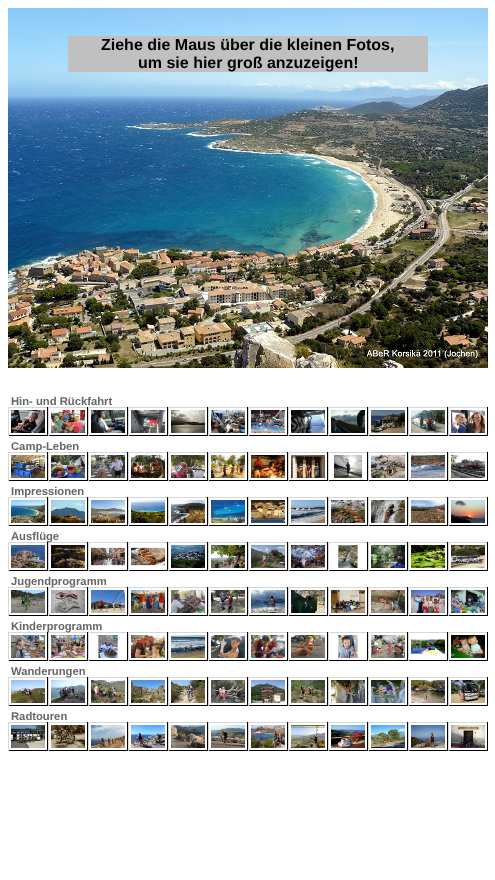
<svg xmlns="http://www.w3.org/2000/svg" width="495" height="880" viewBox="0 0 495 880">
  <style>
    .t1 { font: bold 16px Liberation Sans; fill: #000; }
    .t2 { font: bold 11.25px Liberation Sans; fill: #666; }
  </style>
  <rect width="100%" height="100%" fill="#fff"/>
  <image x="8" y="8" width="480" height="360" href="images/1.png"/>
  <rect x="68" y="36" width="360" height="36" fill="#c0c0c0"/>
  <text x="101" y="50" class="t1">Ziehe die Maus über die kleinen Fotos,</text>
  <text x="138" y="68" class="t1">um sie hier groß anzuzeigen!</text>
  <text x="11" y="405" class="t2">Hin- und Rückfahrt</text>
  <rect x="8" y="407" width="480" height="1" fill="#d7d7d7"/>
  <rect x="47" y="407" width="1" height="29" fill="#000"/>
  <rect x="8" y="435" width="40" height="1" fill="#000"/>
  <rect x="8" y="407" width="1" height="29" fill="#d7d7d7"/>
  <image x="11" y="410" width="34" height="23" href="images/2.png"/>
  <rect x="87" y="407" width="1" height="29" fill="#000"/>
  <rect x="48" y="435" width="40" height="1" fill="#000"/>
  <rect x="48" y="407" width="1" height="29" fill="#d7d7d7"/>
  <image x="51" y="410" width="34" height="23" href="images/3.png"/>
  <rect x="127" y="407" width="1" height="29" fill="#000"/>
  <rect x="88" y="435" width="40" height="1" fill="#000"/>
  <rect x="88" y="407" width="1" height="29" fill="#d7d7d7"/>
  <image x="91" y="410" width="34" height="23" href="images/4.png"/>
  <rect x="167" y="407" width="1" height="29" fill="#000"/>
  <rect x="128" y="435" width="40" height="1" fill="#000"/>
  <rect x="128" y="407" width="1" height="29" fill="#d7d7d7"/>
  <image x="131" y="410" width="34" height="23" href="images/5.png"/>
  <rect x="207" y="407" width="1" height="29" fill="#000"/>
  <rect x="168" y="435" width="40" height="1" fill="#000"/>
  <rect x="168" y="407" width="1" height="29" fill="#d7d7d7"/>
  <image x="171" y="410" width="34" height="23" href="images/6.png"/>
  <rect x="247" y="407" width="1" height="29" fill="#000"/>
  <rect x="208" y="435" width="40" height="1" fill="#000"/>
  <rect x="208" y="407" width="1" height="29" fill="#d7d7d7"/>
  <image x="211" y="410" width="34" height="23" href="images/7.png"/>
  <rect x="287" y="407" width="1" height="29" fill="#000"/>
  <rect x="248" y="435" width="40" height="1" fill="#000"/>
  <rect x="248" y="407" width="1" height="29" fill="#d7d7d7"/>
  <image x="251" y="410" width="34" height="23" href="images/8.png"/>
  <rect x="327" y="407" width="1" height="29" fill="#000"/>
  <rect x="288" y="435" width="40" height="1" fill="#000"/>
  <rect x="288" y="407" width="1" height="29" fill="#d7d7d7"/>
  <image x="291" y="410" width="34" height="23" href="images/9.png"/>
  <rect x="367" y="407" width="1" height="29" fill="#000"/>
  <rect x="328" y="435" width="40" height="1" fill="#000"/>
  <rect x="328" y="407" width="1" height="29" fill="#d7d7d7"/>
  <image x="331" y="410" width="34" height="23" href="images/10.png"/>
  <rect x="407" y="407" width="1" height="29" fill="#000"/>
  <rect x="368" y="435" width="40" height="1" fill="#000"/>
  <rect x="368" y="407" width="1" height="29" fill="#d7d7d7"/>
  <image x="371" y="410" width="34" height="23" href="images/11.png"/>
  <rect x="447" y="407" width="1" height="29" fill="#000"/>
  <rect x="408" y="435" width="40" height="1" fill="#000"/>
  <rect x="408" y="407" width="1" height="29" fill="#d7d7d7"/>
  <image x="411" y="410" width="34" height="23" href="images/12.png"/>
  <rect x="487" y="407" width="1" height="29" fill="#000"/>
  <rect x="448" y="435" width="40" height="1" fill="#000"/>
  <rect x="448" y="407" width="1" height="29" fill="#d7d7d7"/>
  <image x="451" y="410" width="34" height="23" href="images/13.png"/>
  <rect x="8" y="452" width="480" height="1" fill="#d7d7d7"/>
  <rect x="47" y="452" width="1" height="29" fill="#000"/>
  <rect x="87" y="452" width="1" height="29" fill="#000"/>
  <rect x="48" y="480" width="40" height="1" fill="#000"/>
  <rect x="48" y="452" width="1" height="29" fill="#d7d7d7"/>
  <text x="11" y="450" class="t2">Camp-Leben</text>
  <rect x="8" y="480" width="40" height="1" fill="#000"/>
  <rect x="8" y="452" width="1" height="29" fill="#d7d7d7"/>
  <image x="11" y="455" width="34" height="23" href="images/14.png"/>
  <image x="51" y="455" width="34" height="23" href="images/15.png"/>
  <rect x="127" y="452" width="1" height="29" fill="#000"/>
  <rect x="88" y="480" width="40" height="1" fill="#000"/>
  <rect x="88" y="452" width="1" height="29" fill="#d7d7d7"/>
  <image x="91" y="455" width="34" height="23" href="images/16.png"/>
  <rect x="167" y="452" width="1" height="29" fill="#000"/>
  <rect x="128" y="480" width="40" height="1" fill="#000"/>
  <rect x="128" y="452" width="1" height="29" fill="#d7d7d7"/>
  <image x="131" y="455" width="34" height="23" href="images/17.png"/>
  <rect x="207" y="452" width="1" height="29" fill="#000"/>
  <rect x="168" y="480" width="40" height="1" fill="#000"/>
  <rect x="168" y="452" width="1" height="29" fill="#d7d7d7"/>
  <image x="171" y="455" width="34" height="23" href="images/18.png"/>
  <rect x="247" y="452" width="1" height="29" fill="#000"/>
  <rect x="208" y="480" width="40" height="1" fill="#000"/>
  <rect x="208" y="452" width="1" height="29" fill="#d7d7d7"/>
  <image x="211" y="455" width="34" height="23" href="images/19.png"/>
  <rect x="287" y="452" width="1" height="29" fill="#000"/>
  <rect x="248" y="480" width="40" height="1" fill="#000"/>
  <rect x="248" y="452" width="1" height="29" fill="#d7d7d7"/>
  <image x="251" y="455" width="34" height="23" href="images/20.png"/>
  <rect x="327" y="452" width="1" height="29" fill="#000"/>
  <rect x="288" y="480" width="40" height="1" fill="#000"/>
  <rect x="288" y="452" width="1" height="29" fill="#d7d7d7"/>
  <image x="291" y="455" width="34" height="23" href="images/21.png"/>
  <rect x="367" y="452" width="1" height="29" fill="#000"/>
  <rect x="328" y="480" width="40" height="1" fill="#000"/>
  <rect x="328" y="452" width="1" height="29" fill="#d7d7d7"/>
  <image x="334" y="455" width="28" height="23" href="images/22.png"/>
  <rect x="407" y="452" width="1" height="29" fill="#000"/>
  <rect x="368" y="480" width="40" height="1" fill="#000"/>
  <rect x="368" y="452" width="1" height="29" fill="#d7d7d7"/>
  <image x="371" y="455" width="34" height="23" href="images/23.png"/>
  <rect x="447" y="452" width="1" height="29" fill="#000"/>
  <rect x="408" y="480" width="40" height="1" fill="#000"/>
  <rect x="408" y="452" width="1" height="29" fill="#d7d7d7"/>
  <image x="411" y="455" width="34" height="23" href="images/24.png"/>
  <rect x="487" y="452" width="1" height="29" fill="#000"/>
  <rect x="448" y="480" width="40" height="1" fill="#000"/>
  <rect x="448" y="452" width="1" height="29" fill="#d7d7d7"/>
  <image x="451" y="455" width="34" height="23" href="images/25.png"/>
  <rect x="8" y="497" width="480" height="1" fill="#d7d7d7"/>
  <rect x="47" y="497" width="1" height="29" fill="#000"/>
  <rect x="87" y="497" width="1" height="29" fill="#000"/>
  <rect x="48" y="525" width="40" height="1" fill="#000"/>
  <rect x="48" y="497" width="1" height="29" fill="#d7d7d7"/>
  <text x="11" y="495" class="t2">Impressionen</text>
  <rect x="8" y="525" width="40" height="1" fill="#000"/>
  <rect x="8" y="497" width="1" height="29" fill="#d7d7d7"/>
  <image x="11" y="500" width="34" height="23" href="images/26.png"/>
  <image x="51" y="500" width="34" height="23" href="images/27.png"/>
  <rect x="127" y="497" width="1" height="29" fill="#000"/>
  <rect x="88" y="525" width="40" height="1" fill="#000"/>
  <rect x="88" y="497" width="1" height="29" fill="#d7d7d7"/>
  <image x="91" y="500" width="34" height="23" href="images/28.png"/>
  <rect x="167" y="497" width="1" height="29" fill="#000"/>
  <rect x="128" y="525" width="40" height="1" fill="#000"/>
  <rect x="128" y="497" width="1" height="29" fill="#d7d7d7"/>
  <image x="131" y="500" width="34" height="23" href="images/29.png"/>
  <rect x="207" y="497" width="1" height="29" fill="#000"/>
  <rect x="168" y="525" width="40" height="1" fill="#000"/>
  <rect x="168" y="497" width="1" height="29" fill="#d7d7d7"/>
  <image x="171" y="500" width="34" height="23" href="images/30.png"/>
  <rect x="247" y="497" width="1" height="29" fill="#000"/>
  <rect x="208" y="525" width="40" height="1" fill="#000"/>
  <rect x="208" y="497" width="1" height="29" fill="#d7d7d7"/>
  <image x="211" y="500" width="34" height="23" href="images/31.png"/>
  <rect x="287" y="497" width="1" height="29" fill="#000"/>
  <rect x="248" y="525" width="40" height="1" fill="#000"/>
  <rect x="248" y="497" width="1" height="29" fill="#d7d7d7"/>
  <image x="251" y="500" width="34" height="23" href="images/32.png"/>
  <rect x="327" y="497" width="1" height="29" fill="#000"/>
  <rect x="288" y="525" width="40" height="1" fill="#000"/>
  <rect x="288" y="497" width="1" height="29" fill="#d7d7d7"/>
  <image x="291" y="500" width="34" height="23" href="images/33.png"/>
  <rect x="367" y="497" width="1" height="29" fill="#000"/>
  <rect x="328" y="525" width="40" height="1" fill="#000"/>
  <rect x="328" y="497" width="1" height="29" fill="#d7d7d7"/>
  <image x="331" y="500" width="34" height="23" href="images/34.png"/>
  <rect x="407" y="497" width="1" height="29" fill="#000"/>
  <rect x="368" y="525" width="40" height="1" fill="#000"/>
  <rect x="368" y="497" width="1" height="29" fill="#d7d7d7"/>
  <image x="371" y="500" width="34" height="23" href="images/35.png"/>
  <rect x="447" y="497" width="1" height="29" fill="#000"/>
  <rect x="408" y="525" width="40" height="1" fill="#000"/>
  <rect x="408" y="497" width="1" height="29" fill="#d7d7d7"/>
  <image x="411" y="500" width="34" height="23" href="images/36.png"/>
  <rect x="487" y="497" width="1" height="29" fill="#000"/>
  <rect x="448" y="525" width="40" height="1" fill="#000"/>
  <rect x="448" y="497" width="1" height="29" fill="#d7d7d7"/>
  <image x="451" y="500" width="34" height="23" href="images/37.png"/>
  <rect x="8" y="542" width="480" height="1" fill="#d7d7d7"/>
  <rect x="47" y="542" width="1" height="29" fill="#000"/>
  <rect x="87" y="542" width="1" height="29" fill="#000"/>
  <rect x="48" y="570" width="40" height="1" fill="#000"/>
  <rect x="48" y="542" width="1" height="29" fill="#d7d7d7"/>
  <text x="11" y="540" class="t2">Ausflüge</text>
  <rect x="8" y="570" width="40" height="1" fill="#000"/>
  <rect x="8" y="542" width="1" height="29" fill="#d7d7d7"/>
  <image x="11" y="545" width="34" height="23" href="images/38.png"/>
  <image x="51" y="545" width="34" height="23" href="images/39.png"/>
  <rect x="127" y="542" width="1" height="29" fill="#000"/>
  <rect x="88" y="570" width="40" height="1" fill="#000"/>
  <rect x="88" y="542" width="1" height="29" fill="#d7d7d7"/>
  <image x="91" y="547" width="34" height="19" href="images/40.png"/>
  <rect x="167" y="542" width="1" height="29" fill="#000"/>
  <rect x="128" y="570" width="40" height="1" fill="#000"/>
  <rect x="128" y="542" width="1" height="29" fill="#d7d7d7"/>
  <image x="131" y="547" width="34" height="19" href="images/41.png"/>
  <rect x="207" y="542" width="1" height="29" fill="#000"/>
  <rect x="168" y="570" width="40" height="1" fill="#000"/>
  <rect x="168" y="542" width="1" height="29" fill="#d7d7d7"/>
  <image x="171" y="545" width="34" height="23" href="images/42.png"/>
  <rect x="247" y="542" width="1" height="29" fill="#000"/>
  <rect x="208" y="570" width="40" height="1" fill="#000"/>
  <rect x="208" y="542" width="1" height="29" fill="#d7d7d7"/>
  <image x="211" y="545" width="34" height="23" href="images/43.png"/>
  <rect x="287" y="542" width="1" height="29" fill="#000"/>
  <rect x="248" y="570" width="40" height="1" fill="#000"/>
  <rect x="248" y="542" width="1" height="29" fill="#d7d7d7"/>
  <image x="251" y="545" width="34" height="23" href="images/44.png"/>
  <rect x="327" y="542" width="1" height="29" fill="#000"/>
  <rect x="288" y="570" width="40" height="1" fill="#000"/>
  <rect x="288" y="542" width="1" height="29" fill="#d7d7d7"/>
  <image x="291" y="545" width="34" height="23" href="images/45.png"/>
  <rect x="367" y="542" width="1" height="29" fill="#000"/>
  <rect x="328" y="570" width="40" height="1" fill="#000"/>
  <rect x="328" y="542" width="1" height="29" fill="#d7d7d7"/>
  <image x="338" y="545" width="20" height="23" href="images/46.png"/>
  <rect x="407" y="542" width="1" height="29" fill="#000"/>
  <rect x="368" y="570" width="40" height="1" fill="#000"/>
  <rect x="368" y="542" width="1" height="29" fill="#d7d7d7"/>
  <image x="371" y="545" width="34" height="23" href="images/47.png"/>
  <rect x="447" y="542" width="1" height="29" fill="#000"/>
  <rect x="408" y="570" width="40" height="1" fill="#000"/>
  <rect x="408" y="542" width="1" height="29" fill="#d7d7d7"/>
  <image x="411" y="545" width="34" height="23" href="images/48.png"/>
  <rect x="487" y="542" width="1" height="29" fill="#000"/>
  <rect x="448" y="570" width="40" height="1" fill="#000"/>
  <rect x="448" y="542" width="1" height="29" fill="#d7d7d7"/>
  <image x="451" y="545" width="34" height="23" href="images/49.png"/>
  <rect x="8" y="587" width="480" height="1" fill="#d7d7d7"/>
  <rect x="47" y="587" width="1" height="29" fill="#000"/>
  <rect x="87" y="587" width="1" height="29" fill="#000"/>
  <rect x="48" y="615" width="40" height="1" fill="#000"/>
  <rect x="48" y="587" width="1" height="29" fill="#d7d7d7"/>
  <rect x="127" y="587" width="1" height="29" fill="#000"/>
  <rect x="88" y="615" width="40" height="1" fill="#000"/>
  <rect x="88" y="587" width="1" height="29" fill="#d7d7d7"/>
  <text x="11" y="585" class="t2">Jugendprogramm</text>
  <rect x="8" y="615" width="40" height="1" fill="#000"/>
  <rect x="8" y="587" width="1" height="29" fill="#d7d7d7"/>
  <image x="11" y="590" width="34" height="23" href="images/50.png"/>
  <image x="51" y="590" width="34" height="23" href="images/51.png"/>
  <image x="91" y="590" width="34" height="23" href="images/52.png"/>
  <rect x="167" y="587" width="1" height="29" fill="#000"/>
  <rect x="128" y="615" width="40" height="1" fill="#000"/>
  <rect x="128" y="587" width="1" height="29" fill="#d7d7d7"/>
  <image x="131" y="590" width="34" height="23" href="images/53.png"/>
  <rect x="207" y="587" width="1" height="29" fill="#000"/>
  <rect x="168" y="615" width="40" height="1" fill="#000"/>
  <rect x="168" y="587" width="1" height="29" fill="#d7d7d7"/>
  <image x="171" y="590" width="34" height="23" href="images/54.png"/>
  <rect x="247" y="587" width="1" height="29" fill="#000"/>
  <rect x="208" y="615" width="40" height="1" fill="#000"/>
  <rect x="208" y="587" width="1" height="29" fill="#d7d7d7"/>
  <image x="211" y="590" width="34" height="23" href="images/55.png"/>
  <rect x="287" y="587" width="1" height="29" fill="#000"/>
  <rect x="248" y="615" width="40" height="1" fill="#000"/>
  <rect x="248" y="587" width="1" height="29" fill="#d7d7d7"/>
  <image x="251" y="590" width="34" height="23" href="images/56.png"/>
  <rect x="327" y="587" width="1" height="29" fill="#000"/>
  <rect x="288" y="615" width="40" height="1" fill="#000"/>
  <rect x="288" y="587" width="1" height="29" fill="#d7d7d7"/>
  <image x="291" y="590" width="34" height="23" href="images/57.png"/>
  <rect x="367" y="587" width="1" height="29" fill="#000"/>
  <rect x="328" y="615" width="40" height="1" fill="#000"/>
  <rect x="328" y="587" width="1" height="29" fill="#d7d7d7"/>
  <image x="331" y="590" width="34" height="23" href="images/58.png"/>
  <rect x="407" y="587" width="1" height="29" fill="#000"/>
  <rect x="368" y="615" width="40" height="1" fill="#000"/>
  <rect x="368" y="587" width="1" height="29" fill="#d7d7d7"/>
  <image x="371" y="590" width="34" height="23" href="images/59.png"/>
  <rect x="447" y="587" width="1" height="29" fill="#000"/>
  <rect x="408" y="615" width="40" height="1" fill="#000"/>
  <rect x="408" y="587" width="1" height="29" fill="#d7d7d7"/>
  <image x="411" y="590" width="34" height="23" href="images/60.png"/>
  <rect x="487" y="587" width="1" height="29" fill="#000"/>
  <rect x="448" y="615" width="40" height="1" fill="#000"/>
  <rect x="448" y="587" width="1" height="29" fill="#d7d7d7"/>
  <image x="451" y="590" width="34" height="23" href="images/61.png"/>
  <rect x="8" y="632" width="480" height="1" fill="#d7d7d7"/>
  <rect x="47" y="632" width="1" height="29" fill="#000"/>
  <rect x="87" y="632" width="1" height="29" fill="#000"/>
  <rect x="48" y="660" width="40" height="1" fill="#000"/>
  <rect x="48" y="632" width="1" height="29" fill="#d7d7d7"/>
  <rect x="127" y="632" width="1" height="29" fill="#000"/>
  <rect x="88" y="660" width="40" height="1" fill="#000"/>
  <rect x="88" y="632" width="1" height="29" fill="#d7d7d7"/>
  <text x="11" y="630" class="t2">Kinderprogramm</text>
  <rect x="8" y="660" width="40" height="1" fill="#000"/>
  <rect x="8" y="632" width="1" height="29" fill="#d7d7d7"/>
  <image x="11" y="635" width="34" height="23" href="images/62.png"/>
  <image x="51" y="635" width="34" height="23" href="images/63.png"/>
  <image x="98" y="635" width="20" height="23" href="images/64.png"/>
  <rect x="167" y="632" width="1" height="29" fill="#000"/>
  <rect x="128" y="660" width="40" height="1" fill="#000"/>
  <rect x="128" y="632" width="1" height="29" fill="#d7d7d7"/>
  <image x="131" y="635" width="34" height="23" href="images/65.png"/>
  <rect x="207" y="632" width="1" height="29" fill="#000"/>
  <rect x="168" y="660" width="40" height="1" fill="#000"/>
  <rect x="168" y="632" width="1" height="29" fill="#d7d7d7"/>
  <image x="171" y="635" width="34" height="23" href="images/66.png"/>
  <rect x="247" y="632" width="1" height="29" fill="#000"/>
  <rect x="208" y="660" width="40" height="1" fill="#000"/>
  <rect x="208" y="632" width="1" height="29" fill="#d7d7d7"/>
  <image x="211" y="635" width="34" height="23" href="images/67.png"/>
  <rect x="287" y="632" width="1" height="29" fill="#000"/>
  <rect x="248" y="660" width="40" height="1" fill="#000"/>
  <rect x="248" y="632" width="1" height="29" fill="#d7d7d7"/>
  <image x="251" y="635" width="34" height="23" href="images/68.png"/>
  <rect x="327" y="632" width="1" height="29" fill="#000"/>
  <rect x="288" y="660" width="40" height="1" fill="#000"/>
  <rect x="288" y="632" width="1" height="29" fill="#d7d7d7"/>
  <image x="291" y="635" width="34" height="23" href="images/69.png"/>
  <rect x="367" y="632" width="1" height="29" fill="#000"/>
  <rect x="328" y="660" width="40" height="1" fill="#000"/>
  <rect x="328" y="632" width="1" height="29" fill="#d7d7d7"/>
  <image x="338" y="635" width="20" height="23" href="images/70.png"/>
  <rect x="407" y="632" width="1" height="29" fill="#000"/>
  <rect x="368" y="660" width="40" height="1" fill="#000"/>
  <rect x="368" y="632" width="1" height="29" fill="#d7d7d7"/>
  <image x="371" y="635" width="34" height="23" href="images/71.png"/>
  <rect x="447" y="632" width="1" height="29" fill="#000"/>
  <rect x="408" y="660" width="40" height="1" fill="#000"/>
  <rect x="408" y="632" width="1" height="29" fill="#d7d7d7"/>
  <image x="411" y="639" width="34" height="15" href="images/72.png"/>
  <rect x="487" y="632" width="1" height="29" fill="#000"/>
  <rect x="448" y="660" width="40" height="1" fill="#000"/>
  <rect x="448" y="632" width="1" height="29" fill="#d7d7d7"/>
  <image x="451" y="635" width="34" height="23" href="images/73.png"/>
  <rect x="8" y="677" width="480" height="1" fill="#d7d7d7"/>
  <rect x="47" y="677" width="1" height="29" fill="#000"/>
  <rect x="87" y="677" width="1" height="29" fill="#000"/>
  <rect x="48" y="705" width="40" height="1" fill="#000"/>
  <rect x="48" y="677" width="1" height="29" fill="#d7d7d7"/>
  <text x="11" y="675" class="t2">Wanderungen</text>
  <rect x="8" y="705" width="40" height="1" fill="#000"/>
  <rect x="8" y="677" width="1" height="29" fill="#d7d7d7"/>
  <image x="11" y="680" width="34" height="23" href="images/74.png"/>
  <image x="51" y="680" width="34" height="23" href="images/75.png"/>
  <rect x="127" y="677" width="1" height="29" fill="#000"/>
  <rect x="88" y="705" width="40" height="1" fill="#000"/>
  <rect x="88" y="677" width="1" height="29" fill="#d7d7d7"/>
  <image x="91" y="680" width="34" height="23" href="images/76.png"/>
  <rect x="167" y="677" width="1" height="29" fill="#000"/>
  <rect x="128" y="705" width="40" height="1" fill="#000"/>
  <rect x="128" y="677" width="1" height="29" fill="#d7d7d7"/>
  <image x="131" y="680" width="34" height="23" href="images/77.png"/>
  <rect x="207" y="677" width="1" height="29" fill="#000"/>
  <rect x="168" y="705" width="40" height="1" fill="#000"/>
  <rect x="168" y="677" width="1" height="29" fill="#d7d7d7"/>
  <image x="171" y="680" width="34" height="23" href="images/78.png"/>
  <rect x="247" y="677" width="1" height="29" fill="#000"/>
  <rect x="208" y="705" width="40" height="1" fill="#000"/>
  <rect x="208" y="677" width="1" height="29" fill="#d7d7d7"/>
  <image x="211" y="680" width="34" height="23" href="images/79.png"/>
  <rect x="287" y="677" width="1" height="29" fill="#000"/>
  <rect x="248" y="705" width="40" height="1" fill="#000"/>
  <rect x="248" y="677" width="1" height="29" fill="#d7d7d7"/>
  <image x="251" y="680" width="34" height="23" href="images/80.png"/>
  <rect x="327" y="677" width="1" height="29" fill="#000"/>
  <rect x="288" y="705" width="40" height="1" fill="#000"/>
  <rect x="288" y="677" width="1" height="29" fill="#d7d7d7"/>
  <image x="291" y="680" width="34" height="23" href="images/81.png"/>
  <rect x="367" y="677" width="1" height="29" fill="#000"/>
  <rect x="328" y="705" width="40" height="1" fill="#000"/>
  <rect x="328" y="677" width="1" height="29" fill="#d7d7d7"/>
  <image x="331" y="680" width="34" height="23" href="images/82.png"/>
  <rect x="407" y="677" width="1" height="29" fill="#000"/>
  <rect x="368" y="705" width="40" height="1" fill="#000"/>
  <rect x="368" y="677" width="1" height="29" fill="#d7d7d7"/>
  <image x="371" y="680" width="34" height="23" href="images/83.png"/>
  <rect x="447" y="677" width="1" height="29" fill="#000"/>
  <rect x="408" y="705" width="40" height="1" fill="#000"/>
  <rect x="408" y="677" width="1" height="29" fill="#d7d7d7"/>
  <image x="411" y="680" width="34" height="23" href="images/84.png"/>
  <rect x="487" y="677" width="1" height="29" fill="#000"/>
  <rect x="448" y="705" width="40" height="1" fill="#000"/>
  <rect x="448" y="677" width="1" height="29" fill="#d7d7d7"/>
  <image x="451" y="680" width="34" height="23" href="images/85.png"/>
  <text x="11" y="720" class="t2">Radtouren</text>
  <rect x="8" y="722" width="480" height="1" fill="#d7d7d7"/>
  <rect x="47" y="722" width="1" height="29" fill="#000"/>
  <rect x="8" y="750" width="40" height="1" fill="#000"/>
  <rect x="8" y="722" width="1" height="29" fill="#d7d7d7"/>
  <image x="11" y="725" width="34" height="23" href="images/86.png"/>
  <rect x="87" y="722" width="1" height="29" fill="#000"/>
  <rect x="48" y="750" width="40" height="1" fill="#000"/>
  <rect x="48" y="722" width="1" height="29" fill="#d7d7d7"/>
  <image x="51" y="725" width="34" height="23" href="images/87.png"/>
  <rect x="127" y="722" width="1" height="29" fill="#000"/>
  <rect x="88" y="750" width="40" height="1" fill="#000"/>
  <rect x="88" y="722" width="1" height="29" fill="#d7d7d7"/>
  <image x="91" y="725" width="34" height="23" href="images/88.png"/>
  <rect x="167" y="722" width="1" height="29" fill="#000"/>
  <rect x="128" y="750" width="40" height="1" fill="#000"/>
  <rect x="128" y="722" width="1" height="29" fill="#d7d7d7"/>
  <image x="131" y="725" width="34" height="23" href="images/89.png"/>
  <rect x="207" y="722" width="1" height="29" fill="#000"/>
  <rect x="168" y="750" width="40" height="1" fill="#000"/>
  <rect x="168" y="722" width="1" height="29" fill="#d7d7d7"/>
  <image x="171" y="725" width="34" height="23" href="images/90.png"/>
  <rect x="247" y="722" width="1" height="29" fill="#000"/>
  <rect x="208" y="750" width="40" height="1" fill="#000"/>
  <rect x="208" y="722" width="1" height="29" fill="#d7d7d7"/>
  <image x="211" y="725" width="34" height="23" href="images/91.png"/>
  <rect x="287" y="722" width="1" height="29" fill="#000"/>
  <rect x="248" y="750" width="40" height="1" fill="#000"/>
  <rect x="248" y="722" width="1" height="29" fill="#d7d7d7"/>
  <image x="251" y="725" width="34" height="23" href="images/92.png"/>
  <rect x="327" y="722" width="1" height="29" fill="#000"/>
  <rect x="288" y="750" width="40" height="1" fill="#000"/>
  <rect x="288" y="722" width="1" height="29" fill="#d7d7d7"/>
  <image x="291" y="725" width="34" height="23" href="images/93.png"/>
  <rect x="367" y="722" width="1" height="29" fill="#000"/>
  <rect x="328" y="750" width="40" height="1" fill="#000"/>
  <rect x="328" y="722" width="1" height="29" fill="#d7d7d7"/>
  <image x="331" y="725" width="34" height="23" href="images/94.png"/>
  <rect x="407" y="722" width="1" height="29" fill="#000"/>
  <rect x="368" y="750" width="40" height="1" fill="#000"/>
  <rect x="368" y="722" width="1" height="29" fill="#d7d7d7"/>
  <image x="371" y="725" width="34" height="23" href="images/95.png"/>
  <rect x="447" y="722" width="1" height="29" fill="#000"/>
  <rect x="408" y="750" width="40" height="1" fill="#000"/>
  <rect x="408" y="722" width="1" height="29" fill="#d7d7d7"/>
  <image x="411" y="725" width="34" height="23" href="images/96.png"/>
  <rect x="487" y="722" width="1" height="29" fill="#000"/>
  <rect x="448" y="750" width="40" height="1" fill="#000"/>
  <rect x="448" y="722" width="1" height="29" fill="#d7d7d7"/>
  <image x="451" y="725" width="34" height="23" href="images/97.png"/>
</svg>
